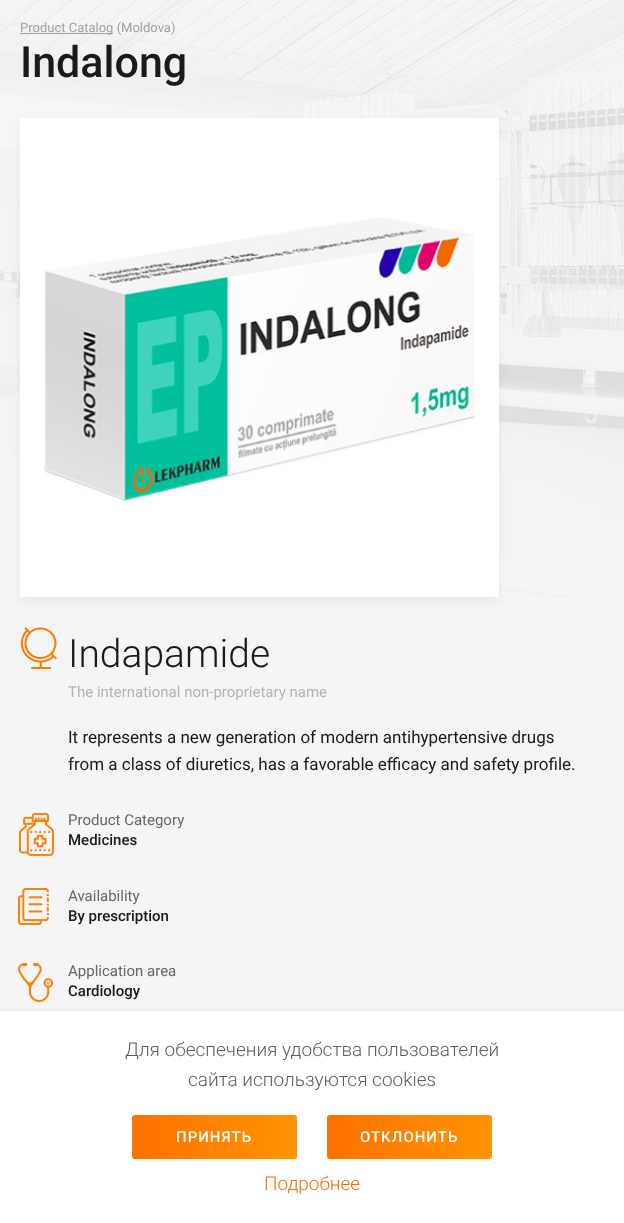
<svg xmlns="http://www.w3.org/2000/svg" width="624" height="1223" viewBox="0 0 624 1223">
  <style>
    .t1 { font: 13px Roboto; fill: #a1a1a1; }
    .t2 { font: 500 43px Roboto; fill: #1a1a18; }
    .t3 { font: 300 39px Roboto; fill: #1a1a18; }
    .t4 { font: 15px Roboto; fill: #b3b3b3; }
    .t5 { font: 17px Roboto; fill: #1a1a18; }
    .t6 { font: 15px Roboto; fill: #666; }
    .t7 { font: 500 15px Roboto; fill: #1a1a18; }
    .t8 { font: 300 19px Roboto; fill: #585f65; }
    .t9 { font: 500 15px Roboto; letter-spacing: 1px; fill: #fff; }
    .t10 { font: 300 19px Roboto; fill: #ed6e0b; }
  </style>
  <defs>
    <linearGradient id="g1" gradientUnits="userSpaceOnUse" x1="132" y1="1159" x2="462" y2="1159"><stop offset="0" stop-color="#ff7200"/><stop offset="0.5" stop-color="#ff9300"/><stop offset="1" stop-color="#ff7200"/></linearGradient>
    <linearGradient id="g2" gradientUnits="userSpaceOnUse" x1="327" y1="1159" x2="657" y2="1159"><stop offset="0" stop-color="#ff7200"/><stop offset="0.5" stop-color="#ff9300"/><stop offset="1" stop-color="#ff7200"/></linearGradient>
  </defs>
  <rect width="100%" height="100%" fill="#f4f5f7"/>
  <image x="0" y="0" width="624" height="597" href="images/1.png"/>
  <rect x="20" y="33" width="93" height="1" fill="#a1a1a1"/>
  <text x="20" y="32" class="t1">Product Catalog (Moldova)</text>
  <text x="20" y="77" class="t2">Indalong</text>
  <rect x="20" y="123" width="479" height="479" fill="#1a1a180d" filter="blur(5px)"/>
  <rect x="20" y="118" width="479" height="479" fill="#fff"/>
  <image x="44" y="217" width="432" height="288" href="images/2.png"/>
  <image x="20" y="627" width="37" height="42" href="images/3.png"/>
  <text x="68" y="667" class="t3">Indapamide</text>
  <text x="68" y="697" class="t4">The international non-proprietary name</text>
  <text x="68" y="743" class="t5">It represents a new generation of modern antihypertensive drugs</text>
  <text x="68" y="770" class="t5">from a class of diuretics, has a favorable efficacy and safety profile.</text>
  <image x="18" y="812" width="36" height="44" href="images/4.png"/>
  <text x="68" y="825" class="t6">Product Category</text>
  <text x="68" y="845" class="t7">Medicines</text>
  <image x="18" y="888" width="31" height="37" href="images/5.png"/>
  <text x="68" y="901" class="t6">Availability</text>
  <text x="68" y="921" class="t7">By prescription</text>
  <image x="18" y="963" width="35" height="39" href="images/6.png"/>
  <text x="68" y="976" class="t6">Application area</text>
  <text x="68" y="996" class="t7">Cardiology</text>
  <rect x="0" y="1013" width="624" height="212" fill="#00000033" filter="blur(2.5px)"/>
  <rect x="0" y="1011" width="624" height="212" fill="#fff"/>
  <text x="125" y="1056" class="t8">Для обеспечения удобства пользователей</text>
  <text x="188" y="1086" class="t8">сайта используются cookies</text>
  <rect x="132" y="1115" width="165" height="44" rx="3" fill="url(#g1)"/>
  <text x="176" y="1142" class="t9">ПРИНЯТЬ</text>
  <rect x="327" y="1115" width="165" height="44" rx="3" fill="url(#g2)"/>
  <text x="360" y="1142" class="t9">ОТКЛОНИТЬ</text>
  <text x="264" y="1190" class="t10">Подробнее</text>
</svg>
